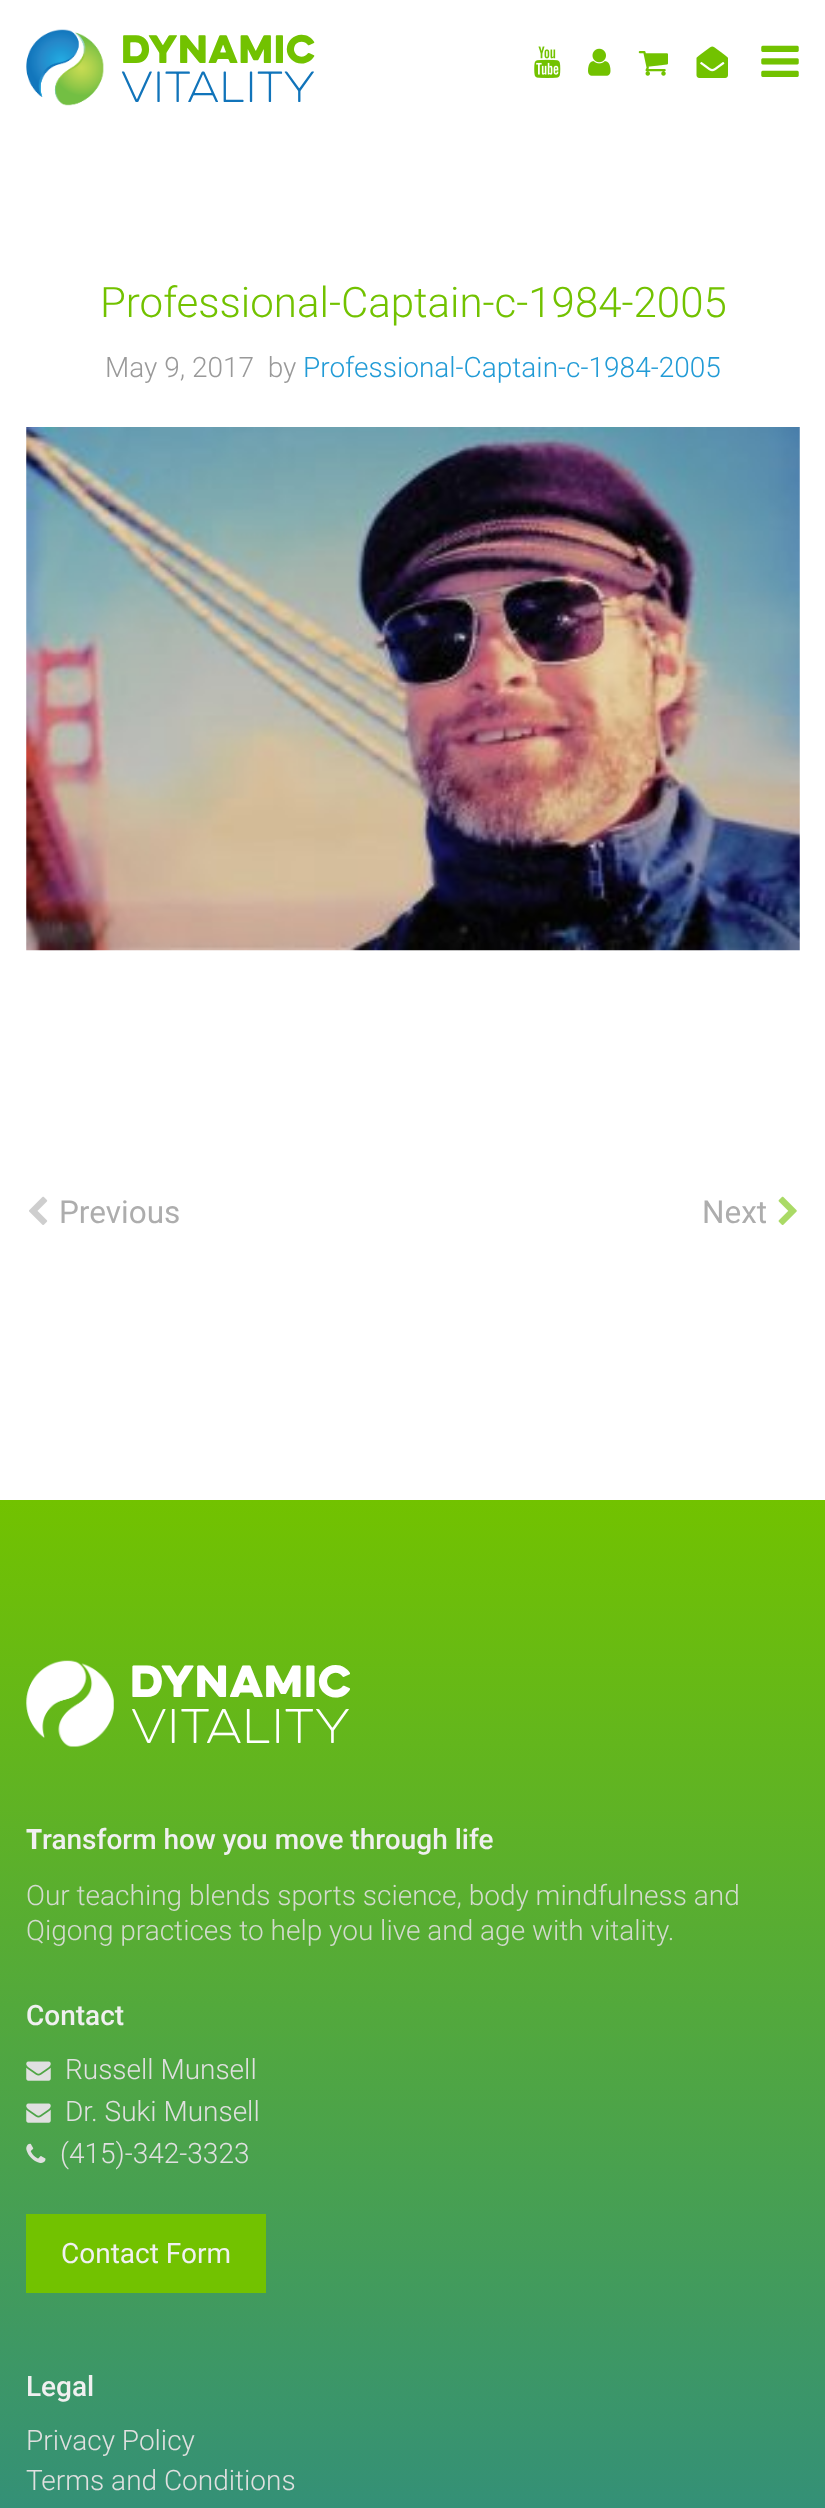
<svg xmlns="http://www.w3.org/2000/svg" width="825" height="2508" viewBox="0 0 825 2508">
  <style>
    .t1 { font: 35.5px 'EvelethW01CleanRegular'; letter-spacing: 0.75px; fill: #72c200; }
    .t2 { font: 100 39px 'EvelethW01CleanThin'; letter-spacing: 0.5px; fill: #1174ba; }
    .t3 { font: 300 42px Roboto; fill: #72c200; }
    .t4 { font: 300 28px Roboto; fill: #999; }
    .t5 { font: 300 28px Roboto; fill: #219bd6; }
    .t6 { font: 31.5px Roboto; fill: #adadad; }
    .t7 { font: 40.25px 'EvelethW01CleanRegular'; letter-spacing: 1px; fill: #fff; }
    .t8 { font: 100 43.75px 'EvelethW01CleanThin'; letter-spacing: 0.75px; fill: #fff; }
    .t9 { font: bold 28px Noto Sans; fill: #f0f0f0; }
    .t10 { font: 500 28px Roboto; fill: #f0f0f0; }
    .t11 { font: 300 28px Roboto; fill: #d3dbce; }
    .t12 { font: 300 28px Roboto; fill: #e0e0e0; }
    .t13 { font: 28px Roboto; fill: #f0f0f0; }
  </style>
  <defs>
    <linearGradient id="g1" gradientUnits="userSpaceOnUse" x1="413" y1="1500" x2="413" y2="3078"><stop offset="0" stop-color="#72c200"/><stop offset="1" stop-color="#1174ba"/></linearGradient>
  </defs>
  <rect width="100%" height="100%" fill="#fff"/>
  <image x="26" y="29" width="78" height="77" href="images/1.png"/>
  <text x="121" y="63" class="t1">DYNAMIC</text>
  <text x="121" y="102" class="t2">VITALITY</text>
  <image x="761" y="45" width="38" height="32" href="images/2.png"/>
  <image x="534" y="46" width="27" height="32" href="images/3.png"/>
  <image x="588" y="48" width="23" height="28" href="images/4.png"/>
  <image x="638" y="51" width="30" height="25" href="images/5.png"/>
  <image x="696" y="46" width="32" height="32" href="images/6.png"/>
  <text x="100" y="317" class="t3">Professional-Captain-c-1984-2005</text>
  <text x="105" y="377" class="t4" xml:space="preserve">May 9, 2017  by</text>
  <text x="303" y="377" class="t5">Professional-Captain-c-1984-2005</text>
  <image x="26" y="427" width="774" height="524" href="images/7.png"/>
  <image x="29" y="1196" width="19" height="29" href="images/8.png"/>
  <text x="59" y="1223" class="t6">Previous</text>
  <text x="702" y="1223" class="t6">Next</text>
  <image x="778" y="1196" width="19" height="29" href="images/9.png"/>
  <rect x="0" y="1500" width="825" height="1008" fill="url(#g1)"/>
  <image x="26" y="1660" width="88" height="87" href="images/10.png"/>
  <text x="130" y="1697" class="t7">DYNAMIC</text>
  <text x="131" y="1743" class="t8">VITALITY</text>
  <text x="26" y="1849" class="t9">T</text>
  <text x="42" y="1849" class="t10">ransform how you move through life</text>
  <text x="26" y="1905" class="t11">Our teaching blends sports science, body mindfulness and</text>
  <text x="26" y="1940" class="t11">Qigong practices to help you live and age with vitality.</text>
  <text x="26" y="2025" class="t10">Contact</text>
  <image x="26" y="2061" width="25" height="20" href="images/11.png"/>
  <text x="65" y="2079" class="t12">Russell Munsell</text>
  <image x="26" y="2103" width="25" height="20" href="images/12.png"/>
  <text x="65" y="2121" class="t12">Dr. Suki Munsell</text>
  <image x="26" y="2143" width="20" height="20" href="images/13.png"/>
  <text x="60" y="2163" class="t12">(415)-342-3323</text>
  <rect x="26" y="2214" width="240" height="79" fill="#72c200"/>
  <text x="61" y="2263" class="t13">Contact Form</text>
  <text x="26" y="2396" class="t10">Legal</text>
  <text x="26" y="2450" class="t12">Privacy Policy</text>
  <text x="26" y="2490" class="t12">Terms and Conditions</text>
</svg>
